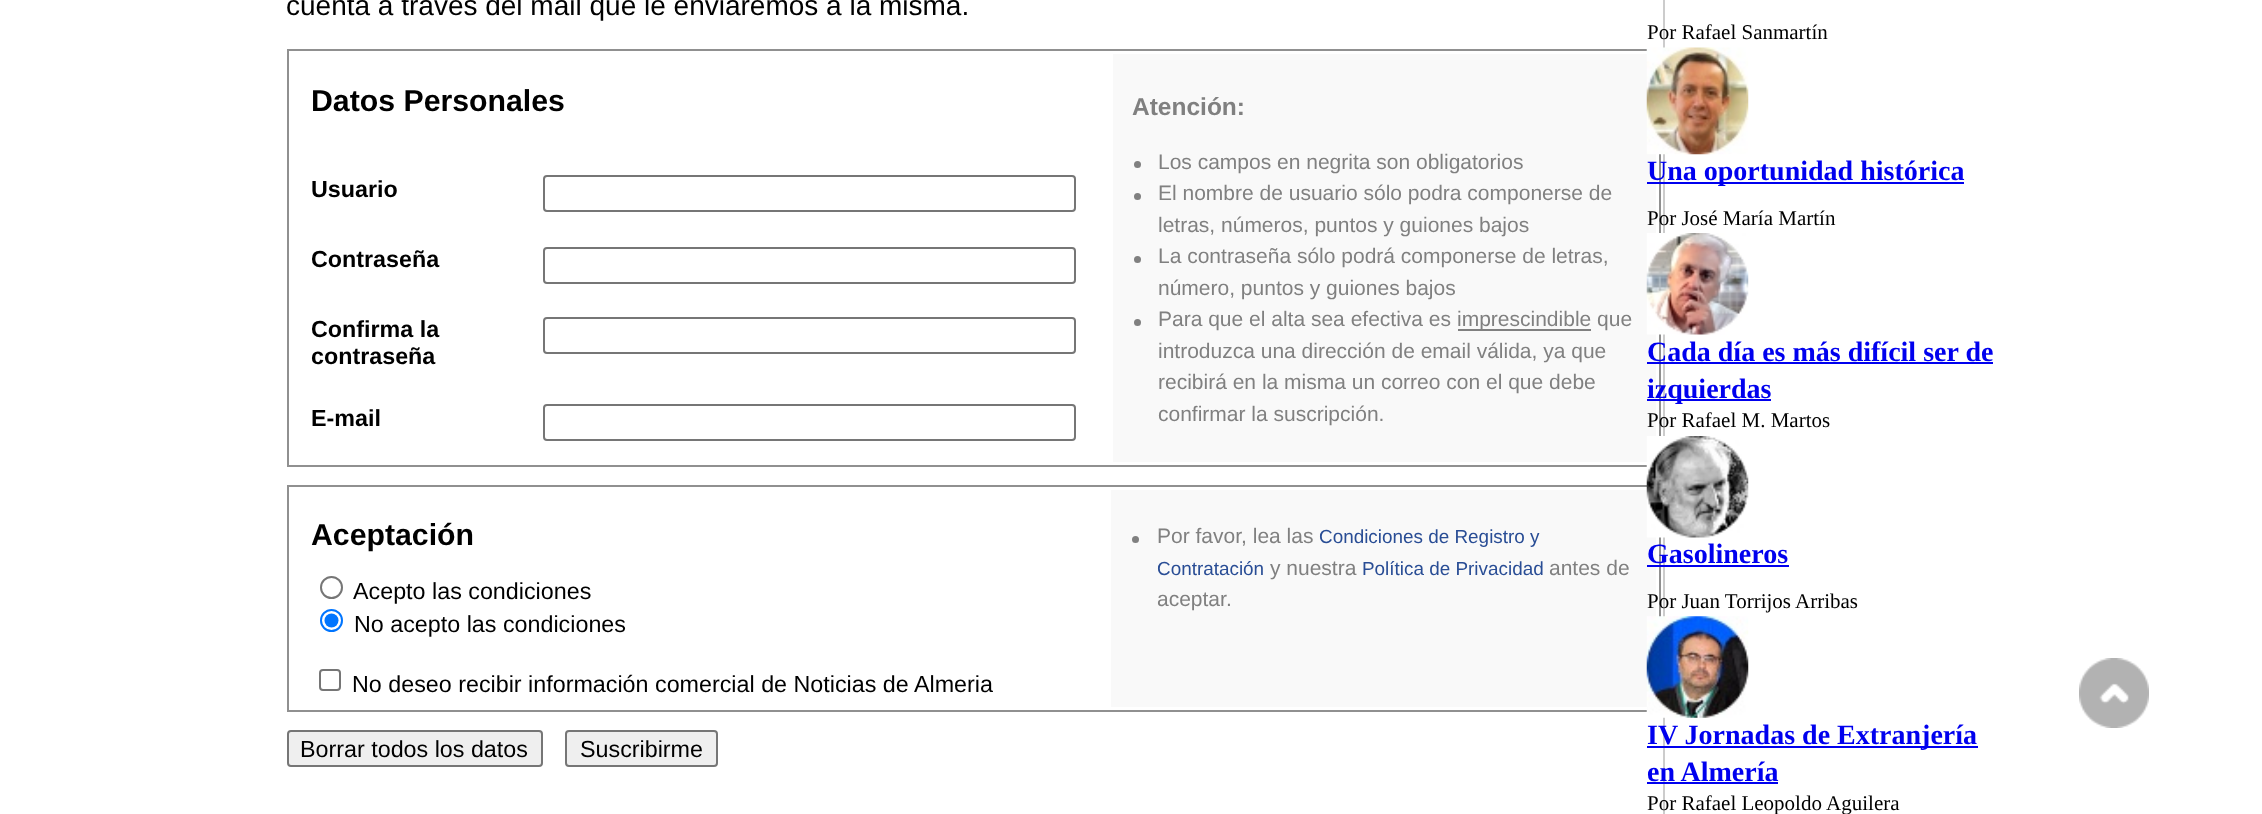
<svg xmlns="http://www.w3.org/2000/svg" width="2262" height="814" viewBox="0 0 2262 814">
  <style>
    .t1 { font: 28px Liberation Sans; fill: #000; }
    .t2 { font: bold 30.25px Liberation Sans; fill: #000; }
    .t3 { font: bold 24.5px Liberation Sans; fill: #808080; }
    .t4 { font: 21px Liberation Sans; fill: #808080; }
    .t5 { font: bold 23.3px Liberation Sans; fill: #000; }
    .t6 { font: 23.3px Liberation Sans; fill: #000; }
    .t7 { font: 18.9px Liberation Sans; fill: #294d95; }
    .t8 { font: 21px Liberation Serif; fill: #000; }
    .t9 { font: bold 28px Liberation Serif; fill: #00e; }
  </style>
  <rect width="100%" height="100%" fill="#fff"/>
  <text x="286" y="15" class="t1">cuenta a través del mail que le enviaremos a la misma.</text>
  <rect x="288" y="50" width="1372" height="416" fill="none" stroke="#909090" stroke-width="2"/>
  <text x="311" y="111" class="t2">Datos Personales</text>
  <rect x="1113" y="54" width="543" height="408" fill="#f9f9f9"/>
  <text x="1132" y="115" class="t3">Atención:</text>
  <circle cx="1137.5" cy="164.5" r="3.5" fill="#808080"/>
  <text x="1158" y="169" class="t4">Los campos en negrita son obligatorios</text>
  <circle cx="1137.5" cy="196.5" r="3.5" fill="#808080"/>
  <text x="1158" y="200" class="t4">El nombre de usuario sólo podra componerse de</text>
  <text x="1158" y="232" class="t4">letras, números, puntos y guiones bajos</text>
  <circle cx="1137.5" cy="259.5" r="3.5" fill="#808080"/>
  <text x="1158" y="263" class="t4">La contraseña sólo podrá componerse de letras,</text>
  <text x="1158" y="295" class="t4">número, puntos y guiones bajos</text>
  <circle cx="1137.5" cy="322.5" r="3.5" fill="#808080"/>
  <text x="1158" y="326" class="t4">Para que el alta sea efectiva es</text>
  <rect x="1458" y="329" width="133" height="2" fill="#808080"/>
  <text x="1457" y="326" class="t4">imprescindible que</text>
  <text x="1158" y="358" class="t4">introduzca una dirección de email válida, ya que</text>
  <text x="1158" y="389" class="t4">recibirá en la misma un correo con el que debe</text>
  <text x="1158" y="421" class="t4">confirmar la suscripción.</text>
  <text x="311" y="197" class="t5">Usuario</text>
  <rect x="544" y="176" width="531" height="35" rx="3" fill="none" stroke="#767676" stroke-width="2"/>
  <text x="311" y="267" class="t5">Contraseña</text>
  <rect x="544" y="248" width="531" height="35" rx="3" fill="none" stroke="#767676" stroke-width="2"/>
  <text x="311" y="337" class="t5">Confirma la</text>
  <text x="311" y="364" class="t5">contraseña</text>
  <rect x="544" y="318" width="531" height="35" rx="3" fill="none" stroke="#767676" stroke-width="2"/>
  <text x="311" y="426" class="t5">E-mail</text>
  <rect x="544" y="405" width="531" height="35" rx="3" fill="none" stroke="#767676" stroke-width="2"/>
  <rect x="288" y="486" width="1372" height="225" fill="none" stroke="#909090" stroke-width="2"/>
  <text x="311" y="545" class="t2">Aceptación</text>
  <circle cx="331.5" cy="587.5" r="10.5" fill="none" stroke="#767676" stroke-width="2"/>
  <text x="353" y="599" class="t6">Acepto las condiciones</text>
  <circle cx="331.5" cy="620.5" r="10.5" fill="none" stroke="#0075ff" stroke-width="2"/>
  <circle cx="331.5" cy="620.5" r="7" fill="#0075ff"/>
  <text x="354" y="632" class="t6">No acepto las condiciones</text>
  <rect x="320" y="670" width="20" height="20" rx="3" fill="none" stroke="#767676" stroke-width="2"/>
  <text x="352" y="692" class="t6">No deseo recibir información comercial de Noticias de Almeria</text>
  <rect x="1111" y="490" width="545" height="217" fill="#f9f9f9"/>
  <circle cx="1135.5" cy="539.5" r="3.5" fill="#808080"/>
  <text x="1157" y="543" class="t4">Por favor, lea las</text>
  <text x="1319" y="543" class="t7">Condiciones de Registro y</text>
  <text x="1157" y="575" class="t7">Contratación</text>
  <text x="1270" y="575" class="t4">y nuestra</text>
  <text x="1362" y="575" class="t7">Política de Privacidad</text>
  <text x="1549" y="575" class="t4">antes de</text>
  <text x="1157" y="606" class="t4">aceptar.</text>
  <rect x="288" y="731" width="254" height="35" rx="3" fill="#efefef" stroke="#767676" stroke-width="2"/>
  <text x="300" y="757" class="t6">Borrar todos los datos</text>
  <rect x="566" y="731" width="151" height="35" rx="3" fill="#efefef" stroke="#767676" stroke-width="2"/>
  <text x="580" y="757" class="t6">Suscribirme</text>
  <rect x="1663" y="0" width="2" height="814" fill="#ccc"/>
  <text x="1647" y="39" class="t8">Por Rafael Sanmartín</text>
  <image x="1646" y="47" width="103" height="108" href="images/1.png"/>
  <rect x="1647" y="182" width="317" height="2" fill="#00e"/>
  <text x="1647" y="180" class="t9">Una oportunidad histórica</text>
  <text x="1647" y="225" class="t8">Por José María Martín</text>
  <image x="1646" y="233" width="103" height="102" href="images/2.png"/>
  <text x="1647" y="361" class="t9">Cada día es más difícil ser de</text>
  <rect x="1647" y="362" width="346" height="2" fill="#00e"/>
  <rect x="1647" y="399" width="124" height="2" fill="#00e"/>
  <text x="1647" y="398" class="t9">izquierdas</text>
  <text x="1647" y="427" class="t8">Por Rafael M. Martos</text>
  <image x="1646" y="436" width="103" height="102" href="images/3.png"/>
  <text x="1647" y="563" class="t9">Gasolineros</text>
  <rect x="1647" y="565" width="142" height="2" fill="#00e"/>
  <text x="1647" y="608" class="t8">Por Juan Torrijos Arribas</text>
  <image x="1646" y="616" width="103" height="102" href="images/4.png"/>
  <rect x="1647" y="746" width="331" height="2" fill="#00e"/>
  <text x="1647" y="744" class="t9">IV Jornadas de Extranjería</text>
  <text x="1647" y="781" class="t9">en Almería</text>
  <rect x="1647" y="782" width="131" height="2" fill="#00e"/>
  <text x="1647" y="810" class="t8">Por Rafael Leopoldo Aguilera</text>
  <image x="2079" y="658" width="70" height="70" href="images/5.png"/>
</svg>
